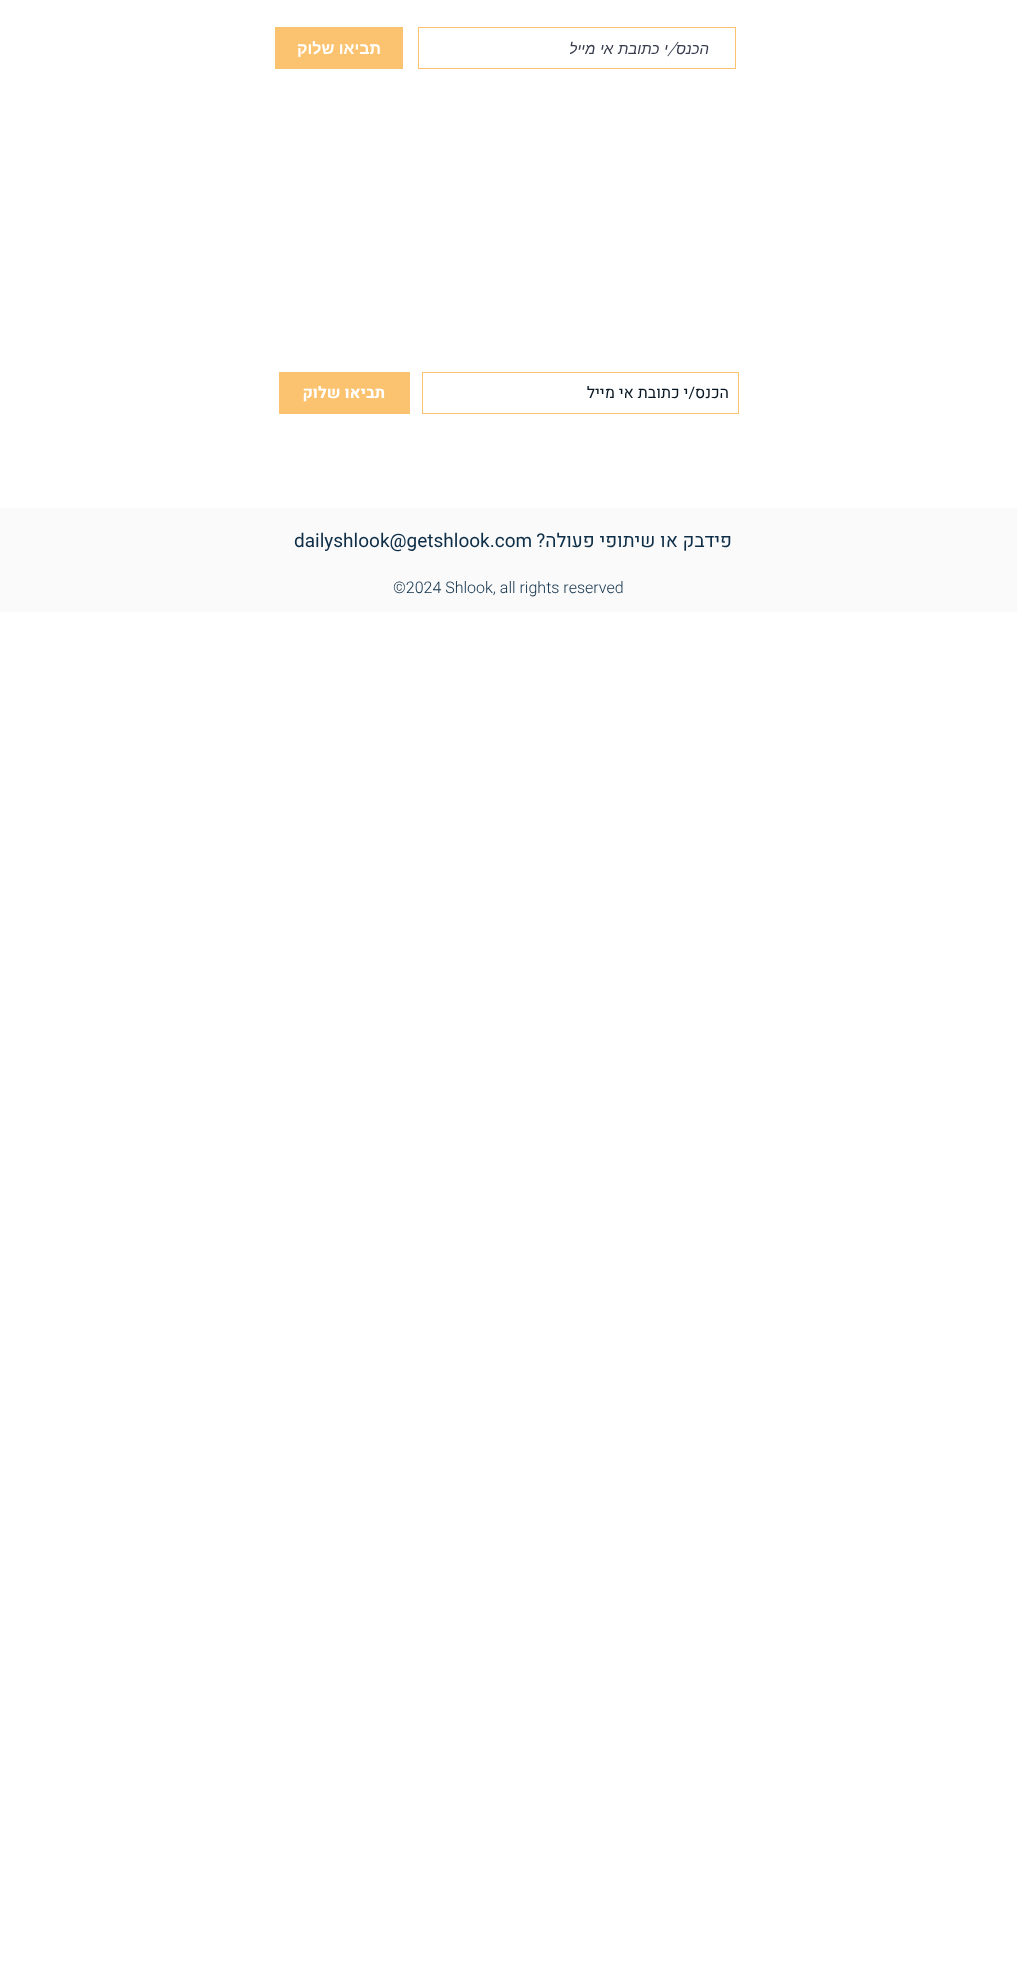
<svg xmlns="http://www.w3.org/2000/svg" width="1017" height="1969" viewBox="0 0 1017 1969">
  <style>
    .t1 { font: italic 15px Liberation Sans; direction: rtl; fill: #373b4d; }
    .t2 { font: italic 15px futura; direction: rtl; fill: #373b4d; }
    .t3 { font: bold 16px Liberation Sans; direction: rtl; fill: #fff; }
    .t4 { font: 16px Heebo; direction: rtl; fill: #081723; }
    .t5 { font: bold 16px Heebo; direction: rtl; fill: #fff; }
    .t6 { font: 19px Heebo; direction: rtl; fill: #0e2e47; }
    .t7 { font: 19px Heebo; fill: #0e2e47; }
    .t8 { font: 300 16px Heebo; fill: #0e2e47; }
  </style>
  <rect width="100%" height="100%" fill="#fff"/>
  <rect x="418.5" y="27.5" width="317" height="41" fill="none" stroke="#fbc370"/>
  <text x="668" y="54" word-spacing="0.5" class="t1">י כתובת אי מייל</text>
  <text x="676" y="54" class="t2">/</text>
  <text x="709" y="54" class="t1">הכנס</text>
  <rect x="275" y="27" width="128" height="42" fill="#fbc370"/>
  <text x="381" y="54" class="t3">תביאו שלוק</text>
  <rect x="422.5" y="372.5" width="316" height="41" fill="none" stroke="#fbc370"/>
  <text x="729" y="398" class="t4">הכנס/י כתובת אי מייל</text>
  <rect x="279" y="372" width="131" height="42" fill="#fbc370"/>
  <text x="385" y="398" class="t5">תביאו שלוק</text>
  <rect x="0" y="508" width="1017" height="104" fill="#fafafa"/>
  <text x="732" y="547" class="t6">פידבק או שיתופי פעולה?</text>
  <text x="294" y="547" class="t7">dailyshlook@getshlook.com</text>
  <text x="393" y="593" class="t8">©2024 Shlook, all rights reserved</text>
</svg>
